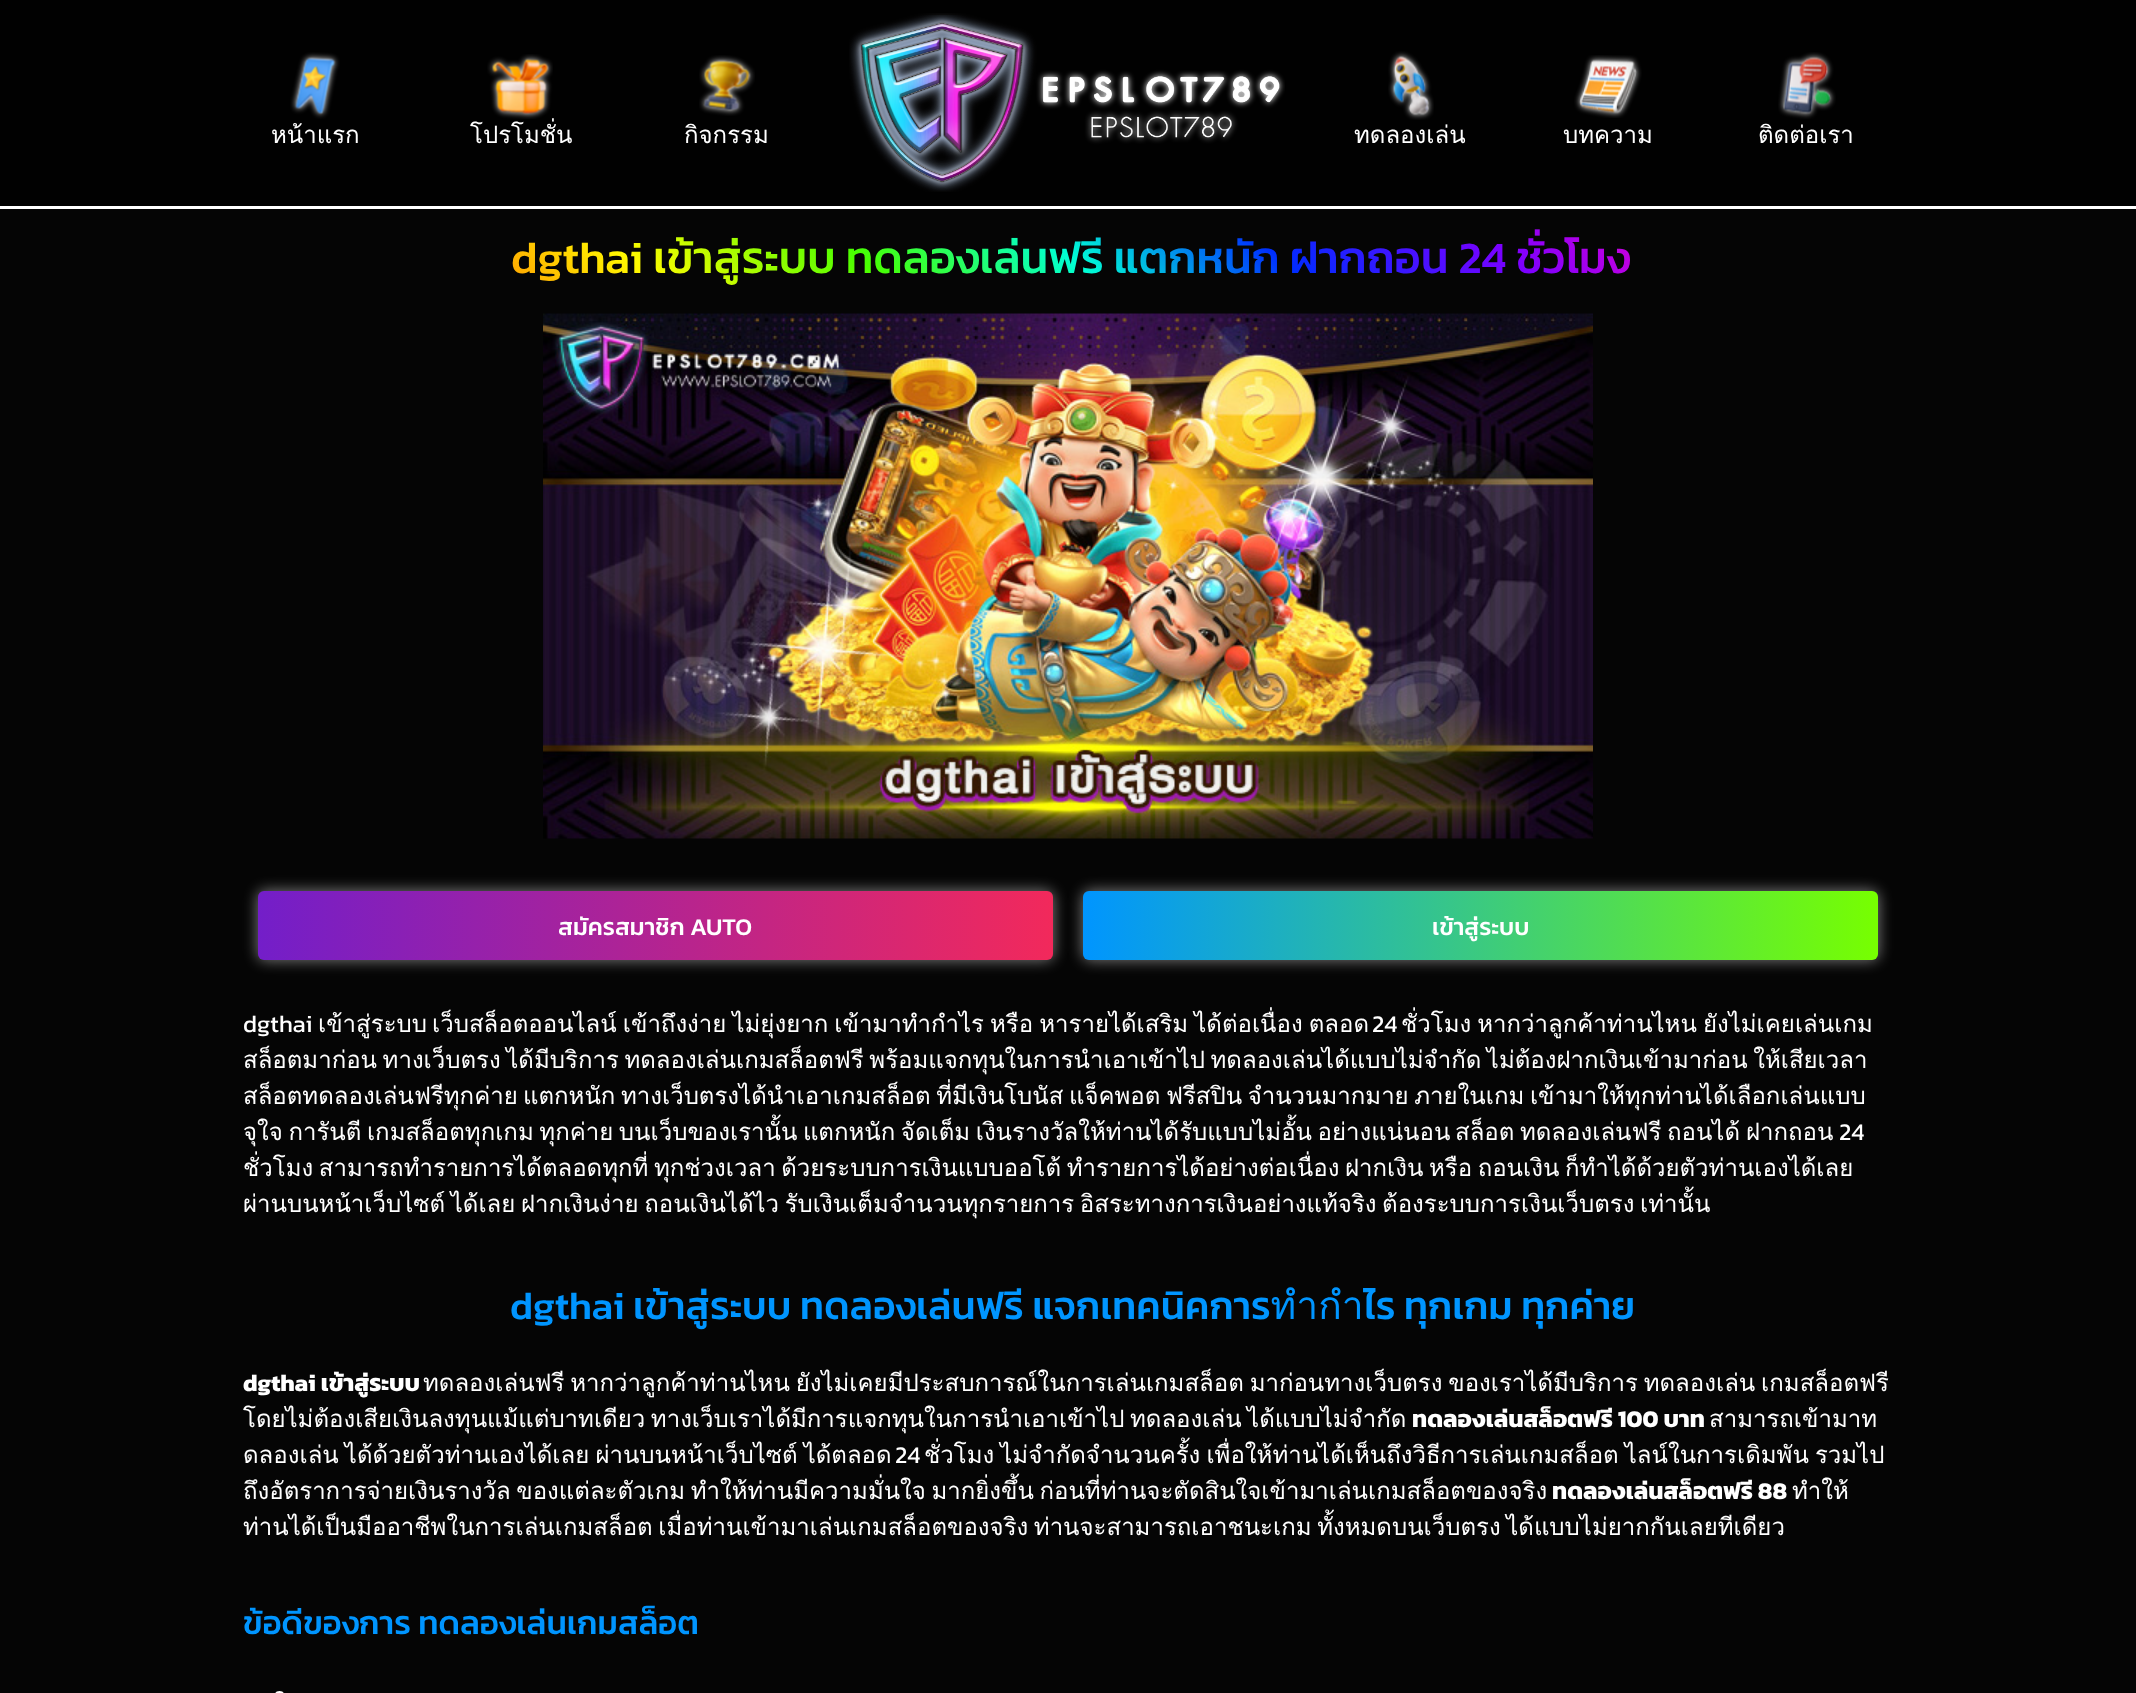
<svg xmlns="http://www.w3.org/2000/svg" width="2136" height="1693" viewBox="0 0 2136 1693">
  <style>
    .t1 { font: 24px Loma; fill: #fff; }
    .t2 { font: 500 45px Kanit; fill: url(#g1); }
    .t3 { font: 500 24px Kanit; fill: #fff; }
    .t4 { font: 24px Kanit; fill: #fff; }
    .t5 { font: 500 39px Kanit; fill: #0095ff; }
    .t6 { font: bold 24px Kanit; fill: #fff; }
    .t7 { font: 500 33px Kanit; fill: #0095ff; }
  </style>
  <defs>
    <linearGradient id="g1" gradientUnits="userSpaceOnUse" x1="633" y1="696" x2="1509" y2="-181"><stop offset="0" stop-color="#f00"/><stop offset="0.12" stop-color="#ff7300"/><stop offset="0.25" stop-color="#fffb00"/><stop offset="0.38" stop-color="#48ff00"/><stop offset="0.5" stop-color="#00ffd5"/><stop offset="0.62" stop-color="#002bff"/><stop offset="0.75" stop-color="#7a00ff"/><stop offset="0.88" stop-color="#ff00c8"/><stop offset="1" stop-color="#f00"/></linearGradient>
    <linearGradient id="g2" gradientUnits="userSpaceOnUse" x1="258" y1="926" x2="1053" y2="926"><stop offset="0" stop-color="#731ec9"/><stop offset="1" stop-color="#f2295b"/></linearGradient>
    <linearGradient id="g3" gradientUnits="userSpaceOnUse" x1="1083" y1="926" x2="1878" y2="926"><stop offset="0" stop-color="#0095ff"/><stop offset="1" stop-color="#7f0"/></linearGradient>
  </defs>
  <rect width="100%" height="100%" fill="#050505"/>
  <rect x="0" y="0" width="2136" height="206" fill="#010101"/>
  <rect x="0" y="206" width="2136" height="3" fill="#fff"/>
  <image x="290" y="52" width="50" height="67" href="images/1.png"/>
  <text x="271" y="143" class="t1">หน้าแรก</text>
  <text x="470" y="143" class="t1">โปรโมชั่น</text>
  <image x="487" y="54" width="66" height="65" href="images/2.png"/>
  <image x="699" y="55" width="56" height="61" href="images/3.png"/>
  <text x="684" y="143" class="t1">กิจกรรม</text>
  <image x="849" y="13" width="436" height="179" href="images/4.png"/>
  <image x="1388" y="51" width="46" height="69" href="images/5.png"/>
  <text x="1354" y="143" class="t1">ทดลองเล่น</text>
  <image x="1574" y="55" width="68" height="63" href="images/6.png"/>
  <text x="1563" y="143" class="t1">บทความ</text>
  <image x="1778" y="52" width="58" height="67" href="images/7.png"/>
  <text x="1758" y="143" class="t1">ติดต่อเรา</text>
  <text x="511" y="273" class="t2">dgthai เข้าสู่ระบบ ทดลองเล่นฟรี แตกหนัก ฝากถอน 24 ชั่วโมง</text>
  <image x="543" y="313" width="1050" height="526" href="images/8.png"/>
  <rect x="258" y="891" width="795" height="69" rx="6" fill="#ffffff80" filter="blur(7.5px)"/>
  <rect x="258" y="891" width="795" height="69" rx="6" fill="url(#g2)"/>
  <text x="558" y="935" class="t3">สมัครสมาชิก AUTO</text>
  <rect x="1083" y="891" width="795" height="69" rx="6" fill="#ffffff80" filter="blur(7.5px)"/>
  <rect x="1083" y="891" width="795" height="69" rx="6" fill="url(#g3)"/>
  <text x="1432" y="935" class="t3">เข้าสู่ระบบ</text>
  <text x="243" y="1032" class="t4">dgthai</text>
  <text x="318" y="1032" class="t1">เข้าสู่ระบบ</text>
  <text x="432" y="1032" word-spacing="-2" class="t1">เว็บสล็อตออนไลน์ เข้าถึงง่าย ไม่ยุ่งยาก เข้ามาทำกำไร หรือ หารายได้เสริม ได้ต่อเนื่อง ตลอด</text>
  <text x="1372" y="1032" class="t4">24</text>
  <text x="1401" y="1032" word-spacing="-2" class="t1">ชั่วโมง หากว่าลูกค้าท่านไหน ยังไม่เคยเล่นเกม</text>
  <text x="243" y="1068" word-spacing="-2.5" class="t1">สล็อตมาก่อน ทางเว็บตรง ได้มีบริการ ทดลองเล่นเกมสล็อตฟรี พร้อมแจกทุนในการนำเอาเข้าไป ทดลองเล่นได้แบบไม่จำกัด ไม่ต้องฝากเงินเข้ามาก่อน ให้เสียเวลา</text>
  <text x="243" y="1104" class="t1">สล็อตทดลองเล่นฟรีทุกค่าย</text>
  <text x="523" y="1104" word-spacing="-2.5" class="t1">แตกหนัก ทางเว็บตรงได้นำเอาเกมสล็อต ที่มีเงินโบนัส แจ็คพอต ฟรีสปิน จำนวนมากมาย ภายในเกม เข้ามาให้ทุกท่านได้เลือกเล่นแบบ</text>
  <text x="243" y="1140" word-spacing="-2.5" class="t1">จุใจ การันตี เกมสล็อตทุกเกม ทุกค่าย บนเว็บของเรานั้น แตกหนัก จัดเต็ม เงินรางวัลให้ท่านได้รับแบบไม่อั้น อย่างแน่นอน</text>
  <text x="1455" y="1140" word-spacing="-2.5" class="t1">สล็อต ทดลองเล่นฟรี ถอนได้</text>
  <text x="1746" y="1140" class="t1">ฝากถอน</text>
  <text x="1839" y="1140" class="t4">24</text>
  <text x="243" y="1176" word-spacing="-2.5" class="t1">ชั่วโมง สามารถทำรายการได้ตลอดทุกที่ ทุกช่วงเวลา ด้วยระบบการเงินแบบออโต้ ทำรายการได้อย่างต่อเนื่อง ฝากเงิน หรือ ถอนเงิน ก็ทำได้ด้วยตัวท่านเองได้เลย</text>
  <text x="243" y="1212" word-spacing="-2.5" class="t1">ผ่านบนหน้าเว็บไซต์ ได้เลย ฝากเงินง่าย ถอนเงินได้ไว รับเงินเต็มจำนวนทุกรายการ อิสระทางการเงินอย่างแท้จริง ต้องระบบการเงินเว็บตรง เท่านั้น</text>
  <text x="510" y="1319" class="t5">dgthai เข้าสู่ระบบ ทดลองเล่นฟรี แจกเทคนิคการทำกำไร ทุกเกม ทุกค่าย</text>
  <text x="243" y="1391" class="t6">dgthai เข้าสู่ระบบ</text>
  <text x="423" y="1391" word-spacing="-2.25" class="t1">ทดลองเล่นฟรี หากว่าลูกค้าท่านไหน ยังไม่เคยมีประสบการณ์ในการเล่นเกมสล็อต มาก่อนทางเว็บตรง ของเราได้มีบริการ ทดลองเล่น เกมสล็อตฟรี</text>
  <text x="243" y="1427" word-spacing="-2.5" class="t1">โดยไม่ต้องเสียเงินลงทุนแม้แต่บาทเดียว ทางเว็บเราได้มีการแจกทุนในการนำเอาเข้าไป ทดลองเล่น ได้แบบไม่จำกัด</text>
  <text x="1412" y="1427" class="t6">ทดลองเล่นสล็อตฟรี 100 บาท</text>
  <text x="1709" y="1427" class="t1">สามารถเข้ามาท</text>
  <text x="243" y="1463" word-spacing="-2" class="t1">ดลองเล่น ได้ด้วยตัวท่านเองได้เลย ผ่านบนหน้าเว็บไซต์ ได้ตลอด</text>
  <text x="895" y="1463" class="t4">24</text>
  <text x="924" y="1463" word-spacing="-2" class="t1">ชั่วโมง ไม่จำกัดจำนวนครั้ง เพื่อให้ท่านได้เห็นถึงวิธีการเล่นเกมสล็อต ไลน์ในการเดิมพัน รวมไป</text>
  <text x="243" y="1499" word-spacing="-2.5" class="t1">ถึงอัตราการจ่ายเงินรางวัล ของแต่ละตัวเกม ทำให้ท่านมีความมั่นใจ มากยิ่งขึ้น ก่อนที่ท่านจะตัดสินใจเข้ามาเล่นเกมสล็อตของจริง</text>
  <text x="1552" y="1499" class="t6">ทดลองเล่นสล็อตฟรี 88</text>
  <text x="1792" y="1499" class="t1">ทำให้</text>
  <text x="243" y="1535" word-spacing="-2.5" class="t1">ท่านได้เป็นมืออาชีพในการเล่นเกมสล็อต เมื่อท่านเข้ามาเล่นเกมสล็อตของจริง ท่านจะสามารถเอาชนะเกม ทั้งหมดบนเว็บตรง ได้แบบไม่ยากกันเลยทีเดียว</text>
  <text x="243" y="1634" class="t7">ข้อดีของการ ทดลองเล่นเกมสล็อต</text>
  <rect x="275" y="1691" width="9" height="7" rx="4.5" fill="#fff"/>
</svg>
